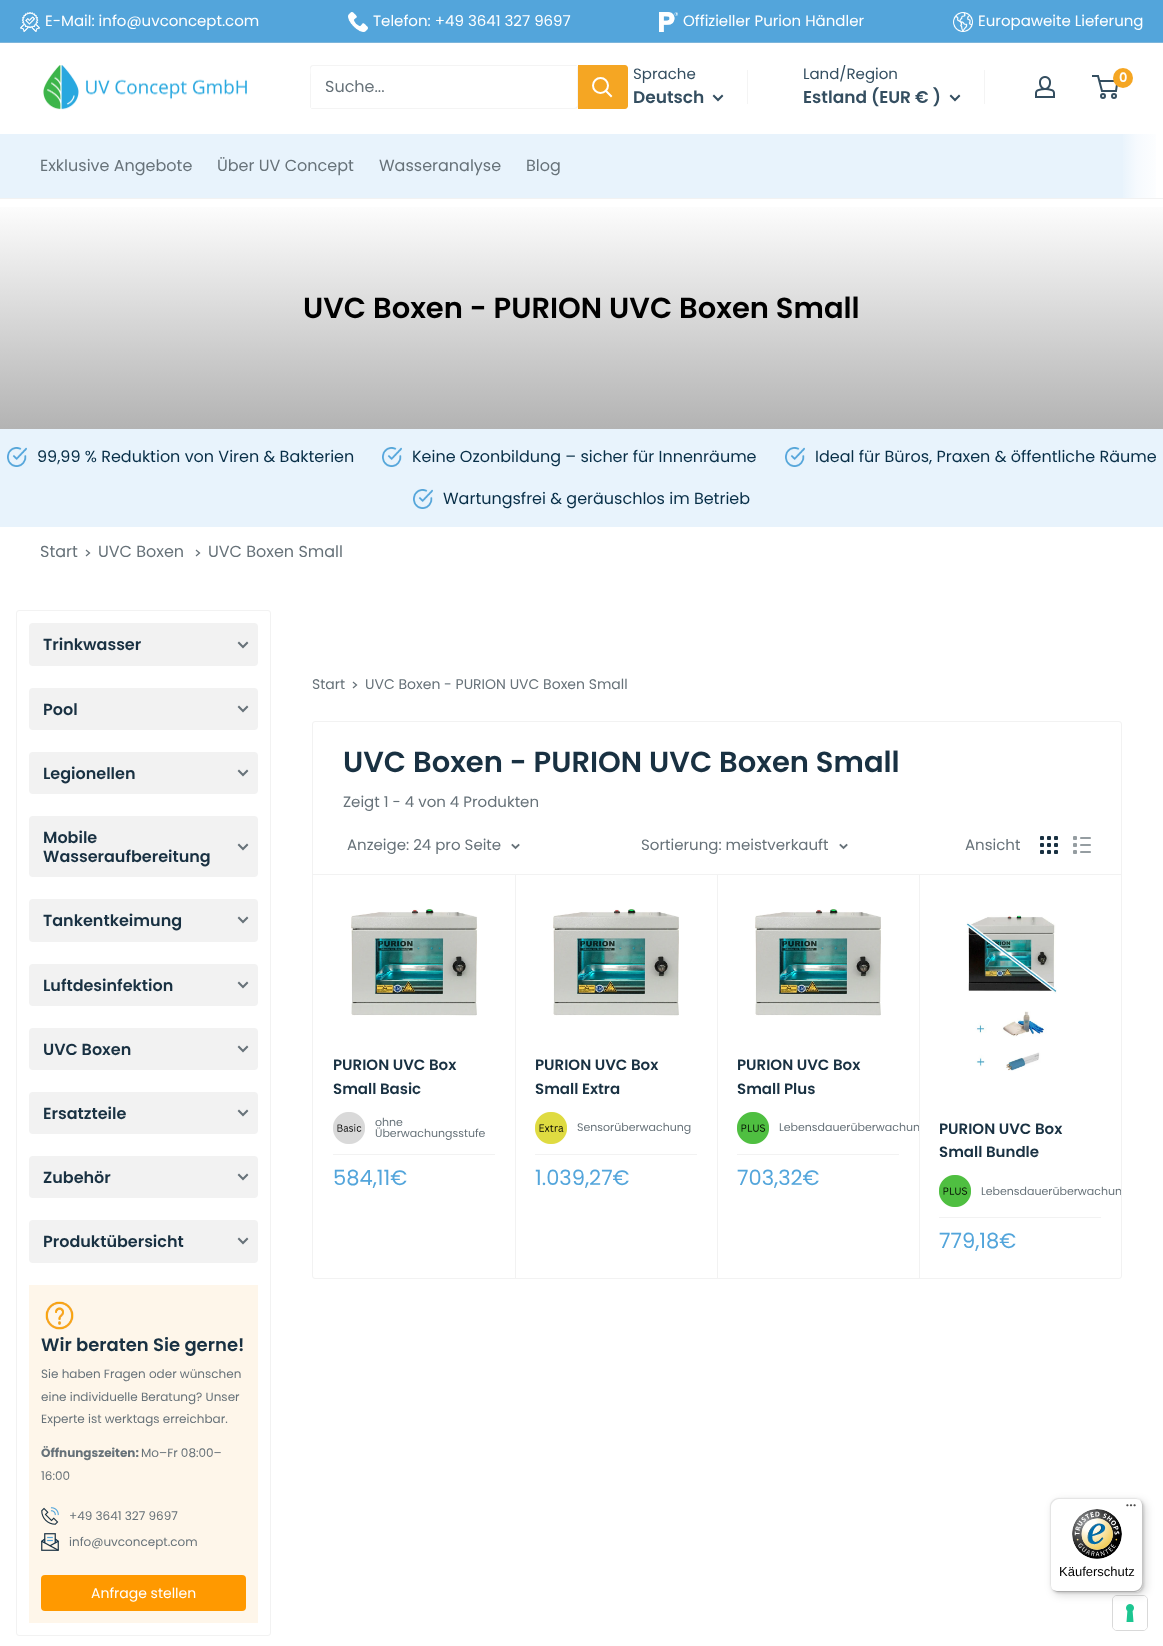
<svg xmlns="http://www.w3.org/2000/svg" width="1163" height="1646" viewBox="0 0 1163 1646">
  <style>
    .t1 { font: 15px Poppins; fill: #fff; }
    .t2 { font: 16px Poppins; fill: #677279; }
    .t3 { font: 15px Poppins; fill: #344e60; }
    .t4 { font: 600 17px Poppins; fill: #344e60; }
    .t5 { font: 600 13px Poppins; fill: #fff; }
    .t6 { font: 600 29px Poppins; fill: #000; }
    .t7 { font: 16px Poppins; fill: #072e47; }
    .t8 { font: 600 16px Poppins; fill: #193142; }
    .t9 { font: 600 18px Poppins; fill: #193142; }
    .t10 { font: 12px Poppins; fill: #677279; }
    .t11 { font: bold 12px Poppins; fill: #677279; }
    .t12 { font: 14px Poppins; fill: #fff; }
    .t13 { font: 14px Poppins; fill: #677279; }
    .t14 { font: 600 29px Poppins; fill: #193142; }
    .t15 { font: 15px Poppins; fill: #677279; }
    .t16 { font: 11px Poppins; fill: #677279; }
    .t17 { font: 600 15px Poppins; fill: #193142; }
    .t18 { font: 21px Poppins; fill: #53a5db; }
    .t19 { font: 13px Liberation Sans; fill: #000; }
  </style>
  <defs>
    <linearGradient id="g1" gradientUnits="userSpaceOnUse" x1="1123" y1="166" x2="1163" y2="166"><stop offset="0" stop-color="#eaf4fc"/><stop offset="0.35" stop-color="#f6fafe"/><stop offset="1" stop-color="#fff"/></linearGradient>
    <linearGradient id="g2" gradientUnits="userSpaceOnUse" x1="582" y1="199" x2="582" y2="429"><stop offset="0" stop-color="#fff"/><stop offset="1" stop-color="#b3b3b3"/></linearGradient>
    <clipPath id="clip1"><rect x="313" y="874" width="808" height="404" rx="3"/></clipPath>
  </defs>
  <rect width="100%" height="100%" fill="#fff"/>
  <rect x="0" y="0" width="1163" height="42" fill="#53a5db"/>
  <rect x="0" y="42" width="1163" height="1" fill="#7cb5db"/>
  <image x="20" y="12" width="20" height="20" href="images/1.png"/>
  <text x="45" y="26" class="t1">E-Mail: info@uvconcept.com</text>
  <image x="348" y="12" width="20" height="20" href="images/2.png"/>
  <text x="373" y="26" class="t1">Telefon: +49 3641 327 9697</text>
  <image x="659" y="12" width="19" height="20" href="images/3.png"/>
  <text x="683" y="26" class="t1">Offizieller Purion Händler</text>
  <image x="953" y="12" width="20" height="20" href="images/4.png"/>
  <text x="978" y="26" class="t1">Europaweite Lieferung</text>
  <image x="43" y="65" width="204" height="45" href="images/5.png"/>
  <path d="M311 108C311 109 312 109 313 109H575C577 109 578 108 578 106V68C578 67 578 66 577 66V99C577 101 579 108 574 108Z" fill="#f4f4f4"/>
  <path d="M314 66H577C577 65 576 65 575 65H313C311 65 310 66 310 68V106C310 107 310 108 311 108V75C311 73 309 66 314 66Z" fill="#f4f4f4"/>
  <text x="325" y="92" class="t2">Suche...</text>
  <path d="M578 65H625C626.5 65 628 66.5 628 68V106C628 107.5 626.5 109 625 109H578Z" fill="#f5a623"/>
  <path d="M611 96L606 91" fill="none" stroke="#fff" stroke-width="2" stroke-linecap="square"/>
  <circle cx="600.5" cy="85.5" r="7.5" fill="none" stroke="#fff" stroke-width="2"/>
  <text x="633" y="79" class="t3">Sprache</text>
  <text x="633" y="103" class="t4">Deutsch</text>
  <path d="M722 96L718 100L714 96" fill="none" stroke="#344e60" stroke-width="2" stroke-linecap="square"/>
  <rect x="747" y="70" width="1" height="34" fill="#f4f4f4"/>
  <text x="803" y="79" class="t3">Land/Region</text>
  <text x="803" y="103" class="t4">Estland (EUR € )</text>
  <path d="M959 96L955 100L951 96" fill="none" stroke="#344e60" stroke-width="2" stroke-linecap="square"/>
  <rect x="984" y="70" width="1" height="34" fill="#f4f4f4"/>
  <image x="1035" y="76" width="20" height="22" href="images/6.png"/>
  <circle cx="1103" cy="96" r="2" fill="none" stroke="#344e60" stroke-width="2"/>
  <circle cx="1114" cy="96" r="2" fill="none" stroke="#344e60" stroke-width="2"/>
  <path d="M1099.5 81H1117.5L1116 91H1102L1098 76H1092" fill="none" stroke="#344e60" stroke-width="2"/>
  <circle cx="1123" cy="78" r="10" fill="#f5a623"/>
  <text x="1119" y="82" class="t5">0</text>
  <rect x="0" y="134" width="1123" height="64" fill="#e8f3fc"/>
  <rect x="0" y="198" width="1163" height="1" fill="#f2f2f2"/>
  <text x="40" y="171" class="t2">Exklusive Angebote</text>
  <text x="217" y="171" class="t2">Über UV Concept</text>
  <text x="379" y="171" class="t2">Wasseranalyse</text>
  <text x="526" y="171" class="t2">Blog</text>
  <rect x="1123" y="134" width="33" height="64" fill="url(#g1)"/>
  <rect x="0" y="207" width="1163" height="222" fill="url(#g2)"/>
  <text x="303" y="318" class="t6">UVC Boxen - PURION UVC Boxen Small</text>
  <rect x="0" y="429" width="1163" height="98" fill="#e8f3fc"/>
  <image x="7" y="447" width="20" height="20" href="images/7.png"/>
  <text x="37" y="462" class="t7">99,99 % Reduktion von Viren &amp; Bakterien</text>
  <image x="382" y="447" width="20" height="20" href="images/7.png"/>
  <text x="412" y="462" class="t7">Keine Ozonbildung – sicher für Innenräume</text>
  <image x="785" y="447" width="20" height="20" href="images/7.png"/>
  <text x="815" y="462" class="t7">Ideal für Büros, Praxen &amp; öffentliche Räume</text>
  <image x="413" y="489" width="20" height="20" href="images/8.png"/>
  <text x="443" y="504" class="t7">Wartungsfrei &amp; geräuschlos im Betrieb</text>
  <text x="40" y="557" class="t2">Start</text>
  <path d="M86.5 550.5L89.5 553L86.5 555.5" fill="none" stroke="#677279" stroke-width="1.3" stroke-linecap="square"/>
  <text x="98" y="557" class="t2">UVC Boxen</text>
  <path d="M196.5 550.5L199.5 553L196.5 555.5" fill="none" stroke="#677279" stroke-width="1.3" stroke-linecap="square"/>
  <text x="208" y="557" class="t2">UVC Boxen Small</text>
  <rect x="16.5" y="610.5" width="254" height="1025" rx="2.5" fill="none" stroke="#f2f2f2"/>
  <rect x="29" y="623" width="229" height="43" rx="4" fill="#f2f2f2"/>
  <text x="43" y="650" class="t8">Trinkwasser</text>
  <path d="M247 643L243 647L239 643" fill="none" stroke="#677279" stroke-width="2" stroke-linecap="square"/>
  <rect x="29" y="688" width="229" height="42" rx="4" fill="#f2f2f2"/>
  <text x="43" y="715" class="t8">Pool</text>
  <path d="M247 707L243 711L239 707" fill="none" stroke="#677279" stroke-width="2" stroke-linecap="square"/>
  <rect x="29" y="752" width="229" height="42" rx="4" fill="#f2f2f2"/>
  <text x="43" y="779" class="t8">Legionellen</text>
  <path d="M247 771L243 775L239 771" fill="none" stroke="#677279" stroke-width="2" stroke-linecap="square"/>
  <rect x="29" y="816" width="229" height="61" rx="4" fill="#f2f2f2"/>
  <text x="43" y="843" class="t8">Mobile</text>
  <text x="43" y="862" class="t8">Wasseraufbereitung</text>
  <path d="M247 845L243 849L239 845" fill="none" stroke="#677279" stroke-width="2" stroke-linecap="square"/>
  <rect x="29" y="899" width="229" height="43" rx="4" fill="#f2f2f2"/>
  <text x="43" y="926" class="t8">Tankentkeimung</text>
  <path d="M247 918L243 922L239 918" fill="none" stroke="#677279" stroke-width="2" stroke-linecap="square"/>
  <rect x="29" y="964" width="229" height="42" rx="4" fill="#f2f2f2"/>
  <text x="43" y="991" class="t8">Luftdesinfektion</text>
  <path d="M247 983L243 987L239 983" fill="none" stroke="#677279" stroke-width="2" stroke-linecap="square"/>
  <rect x="29" y="1028" width="229" height="42" rx="4" fill="#f2f2f2"/>
  <text x="43" y="1055" class="t8">UVC Boxen</text>
  <path d="M247 1047L243 1051L239 1047" fill="none" stroke="#677279" stroke-width="2" stroke-linecap="square"/>
  <rect x="29" y="1092" width="229" height="42" rx="4" fill="#f2f2f2"/>
  <text x="43" y="1119" class="t8">Ersatzteile</text>
  <path d="M247 1111L243 1115L239 1111" fill="none" stroke="#677279" stroke-width="2" stroke-linecap="square"/>
  <rect x="29" y="1156" width="229" height="42" rx="4" fill="#f2f2f2"/>
  <text x="43" y="1183" class="t8">Zubehör</text>
  <path d="M247 1175L243 1179L239 1175" fill="none" stroke="#677279" stroke-width="2" stroke-linecap="square"/>
  <rect x="29" y="1220" width="229" height="43" rx="4" fill="#f2f2f2"/>
  <text x="43" y="1247" class="t8">Produktübersicht</text>
  <path d="M247 1239L243 1243L239 1239" fill="none" stroke="#677279" stroke-width="2" stroke-linecap="square"/>
  <rect x="29" y="1285" width="229" height="338" fill="#fef6ea"/>
  <image x="45" y="1301" width="29" height="29" href="images/9.png"/>
  <text x="41" y="1351" class="t9">Wir beraten Sie gerne!</text>
  <text x="41" y="1378" class="t10">Sie haben Fragen oder wünschen</text>
  <text x="41" y="1401" class="t10">eine individuelle Beratung? Unser</text>
  <text x="41" y="1423" class="t10">Experte ist werktags erreichbar.</text>
  <text x="41" y="1457" class="t11">Öffnungszeiten:</text>
  <text x="141" y="1457" class="t10">Mo–Fr 08:00–</text>
  <text x="41" y="1480" class="t10">16:00</text>
  <image x="41" y="1507" width="18" height="18" href="images/10.png"/>
  <text x="69" y="1520" class="t10">+49 3641 327 9697</text>
  <image x="41" y="1533" width="18" height="18" href="images/11.png"/>
  <text x="69" y="1546" class="t10">info@uvconcept.com</text>
  <rect x="41" y="1575" width="205" height="36" rx="4" fill="#f90"/>
  <text x="91" y="1598" class="t12">Anfrage stellen</text>
  <text x="312" y="689" class="t13">Start</text>
  <path d="M353.5 682.5L356.5 685L353.5 687.5" fill="none" stroke="#677279" stroke-width="1.3" stroke-linecap="square"/>
  <text x="365" y="689" class="t13">UVC Boxen - PURION UVC Boxen Small</text>
  <rect x="312.5" y="721.5" width="809" height="557" rx="2.5" fill="none" stroke="#f2f2f2"/>
  <text x="343" y="772" class="t14">UVC Boxen - PURION UVC Boxen Small</text>
  <text x="343" y="807" class="t15">Zeigt 1 - 4 von 4 Produkten</text>
  <rect x="515" y="874" width="1" height="404" fill="#f2f2f2"/>
  <rect x="717" y="874" width="1" height="404" fill="#f2f2f2"/>
  <text x="779" y="1131" class="t16">Lebensdauerüberwachun</text>
  <path d="M919 874H1118C1119.5 874 1121 875.5 1121 877V1275C1121 1276.5 1119.5 1278 1118 1278H919Z" fill="#fff"/>
  <rect x="919" y="874" width="1" height="404" fill="#f2f2f2"/>
  <rect x="313" y="874" width="808" height="1" fill="#f2f2f2"/>
  <text x="347" y="850" class="t15">Anzeige: 24 pro Seite</text>
  <path d="M518.5 845L515.5 848L512.5 845" fill="none" stroke="#677279" stroke-width="1.9" stroke-linecap="square"/>
  <text x="641" y="850" class="t15">Sortierung: meistverkauft</text>
  <path d="M846.5 845L843.5 848L840.5 845" fill="none" stroke="#677279" stroke-width="1.9" stroke-linecap="square"/>
  <text x="965" y="850" class="t15">Ansicht</text>
  <image x="1040" y="836" width="18" height="18" href="images/12.png"/>
  <image x="1073" y="836" width="18" height="18" href="images/13.png"/>
  <image x="351" y="909" width="127" height="107" href="images/14.png"/>
  <text x="333" y="1070" class="t17">PURION UVC Box</text>
  <text x="333" y="1094" class="t17">Small Basic</text>
  <image x="333" y="1112" width="32" height="32" href="images/15.png"/>
  <text x="375" y="1126" class="t16">ohne</text>
  <text x="375" y="1137" class="t16">Überwachungsstufe</text>
  <rect x="333" y="1154" width="162" height="1" fill="#f2f2f2"/>
  <text x="333" y="1185" class="t18">584,11€</text>
  <image x="553" y="909" width="126" height="107" href="images/16.png"/>
  <text x="535" y="1070" class="t17">PURION UVC Box</text>
  <text x="535" y="1094" class="t17">Small Extra</text>
  <image x="535" y="1112" width="32" height="32" href="images/17.png"/>
  <text x="577" y="1131" class="t16">Sensorüberwachung</text>
  <rect x="535" y="1154" width="162" height="1" fill="#f2f2f2"/>
  <text x="535" y="1185" class="t18">1.039,27€</text>
  <image x="755" y="909" width="126" height="107" href="images/16.png"/>
  <text x="737" y="1070" class="t17">PURION UVC Box</text>
  <text x="737" y="1094" class="t17">Small Plus</text>
  <image x="737" y="1112" width="32" height="32" href="images/18.png"/>
  <rect x="737" y="1154" width="162" height="1" fill="#f2f2f2"/>
  <text x="737" y="1185" class="t18">703,32€</text>
  <image x="966" y="915" width="91" height="156" href="images/19.png"/>
  <text x="939" y="1134" class="t17">PURION UVC Box</text>
  <text x="939" y="1157" class="t17">Small Bundle</text>
  <image x="939" y="1175" width="32" height="32" href="images/18.png"/>
  <g clip-path="url(#clip1)">
    <text x="981" y="1195" class="t16">Lebensdauerüberwachun</text>
  </g>
  <rect x="939" y="1217" width="162" height="1" fill="#f2f2f2"/>
  <text x="939" y="1248" class="t18">779,18€</text>
  <rect x="1112.5" y="1595.5" width="35" height="35" rx="4.5" fill="none" stroke="#d9d9d9"/>
  <rect x="1113" y="1596" width="34" height="34" rx="4" fill="#fff"/>
  <image x="1126" y="1604" width="8" height="18" href="images/22.png"/>
  <rect x="1053" y="1501" width="93" height="94" rx="8" fill="#00000026" filter="blur(4px)"/>
  <rect x="1051" y="1499" width="93" height="94" rx="8" fill="#00000026" filter="blur(1px)"/>
  <rect x="1050" y="1498" width="93" height="94" rx="8" fill="#fff"/>
  <path d="M1059 1499H1136C1138 1499 1140 1500 1142 1502C1140 1500 1138 1498 1135 1498H1058C1054 1498 1050 1502 1050 1506V1584C1050 1587 1052 1589 1054 1591C1052 1589 1051 1587 1051 1585V1507C1051 1503 1055 1499 1059 1499Z" fill="#e5e5e5"/>
  <path d="M1051 1588C1053 1590 1055 1592 1058 1592H1135C1139 1592 1143 1588 1143 1584V1506C1143 1503 1141 1501 1139 1499C1141 1501 1142 1503 1142 1505V1583C1142 1587 1138 1591 1134 1591H1057C1055 1591 1053 1590 1051 1588Z" fill="#ccc"/>
  <path d="M1052 1589C1053 1591 1056 1592 1058 1592H1135C1139 1592 1143 1588 1143 1584V1506C1143 1504 1142 1501 1140 1500C1141 1501 1142 1503 1142 1505V1583C1142 1588 1139 1591 1134 1591H1057C1055 1591 1053 1590 1052 1589Z" fill="#32323233"/>
  <path d="M1134 1592C1146 1592 1143 1579 1143 1571V1519C1143 1511 1146 1498 1134 1498C1139 1498 1142 1501 1142 1506V1584C1142 1588 1139 1592 1134 1592Z" fill="#ffffff4d"/>
  <image x="1126" y="1504" width="10" height="3" href="images/20.png"/>
  <image x="1072" y="1509" width="50" height="50" href="images/21.png"/>
  <text x="1059" y="1576" class="t19">Käuferschutz</text>
</svg>
